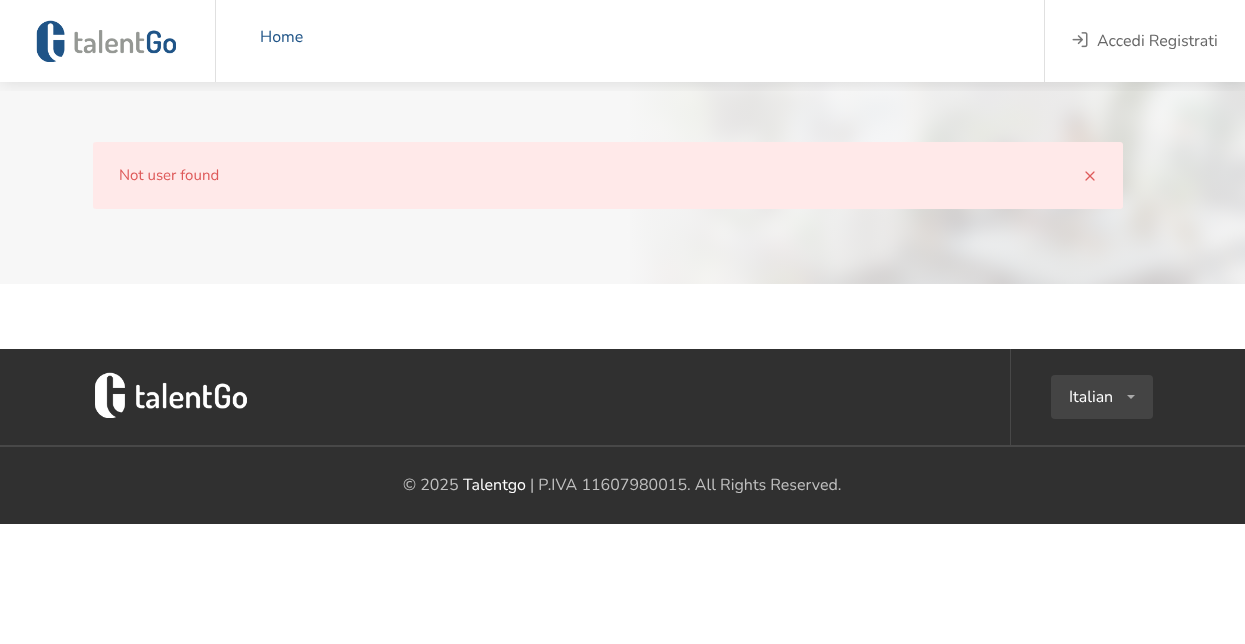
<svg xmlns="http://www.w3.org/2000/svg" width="1245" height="644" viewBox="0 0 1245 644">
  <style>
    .t1 { font: 16px Nunito; fill: #1f5487; }
    .t2 { font: 16px Nunito; fill: #666; }
    .t3 { font: 15px Nunito; fill: #de5959; }
    .t4 { font: 16px Nunito; fill: #fff; }
    .t5 { font: 16px Nunito; fill: #c0c0c0; }
  </style>
  <defs>
    <linearGradient id="g1" gradientUnits="userSpaceOnUse" x1="0" y1="183" x2="1245" y2="183"><stop offset="0.5" stop-color="#f7f7f7"/><stop offset="0.7" stop-color="#f7f7f7" stop-opacity="0.8"/><stop offset="0.9" stop-color="#f7f7f7" stop-opacity="0.8"/></linearGradient>
    <clipPath id="clip1"><rect x="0" y="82" width="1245" height="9"/></clipPath>
  </defs>
  <rect width="100%" height="100%" fill="#fff"/>
  <image x="630" y="82" width="615" height="202" href="images/4.png"/>
  <rect x="0" y="82" width="1245" height="202" fill="url(#g1)"/>
  <g clip-path="url(#clip1)">
    <rect x="0" y="0" width="1245" height="82" fill="#0000001f" filter="blur(9px)"/>
  </g>
  <rect x="215" y="0" width="1" height="82" fill="#e0e0e0"/>
  <image x="36" y="20" width="140" height="42" href="images/1.png"/>
  <text x="260" y="42" class="t1">Home</text>
  <rect x="1044" y="0" width="1" height="82" fill="#e0e0e0"/>
  <image x="1072" y="32" width="16" height="16" href="images/2.png"/>
  <text x="1097" y="46" class="t2">Accedi Registrati</text>
  <rect x="93" y="142" width="1030" height="67" rx="3" fill="#ffe9e9"/>
  <text x="119" y="180" class="t3">Not user found</text>
  <image x="1085" y="171" width="10" height="10" href="images/3.png"/>
  <rect x="0" y="349" width="1245" height="175" fill="#303030"/>
  <rect x="0" y="445" width="1245" height="2" fill="#484848"/>
  <image x="95" y="372" width="152" height="46" href="images/5.png"/>
  <rect x="1010" y="349" width="1" height="96" fill="#484848"/>
  <rect x="1051" y="375" width="102" height="44" rx="4" fill="#444"/>
  <text x="1069" y="402" class="t4">Italian</text>
  <path d="M1127 395H1135L1131 399Z" fill="#aaa"/>
  <text x="403" y="490" class="t5">© 2025</text>
  <text x="463" y="490" class="t4">Talentgo</text>
  <text x="530" y="490" class="t5">| P.IVA 11607980015. All Rights Reserved.</text>
</svg>
